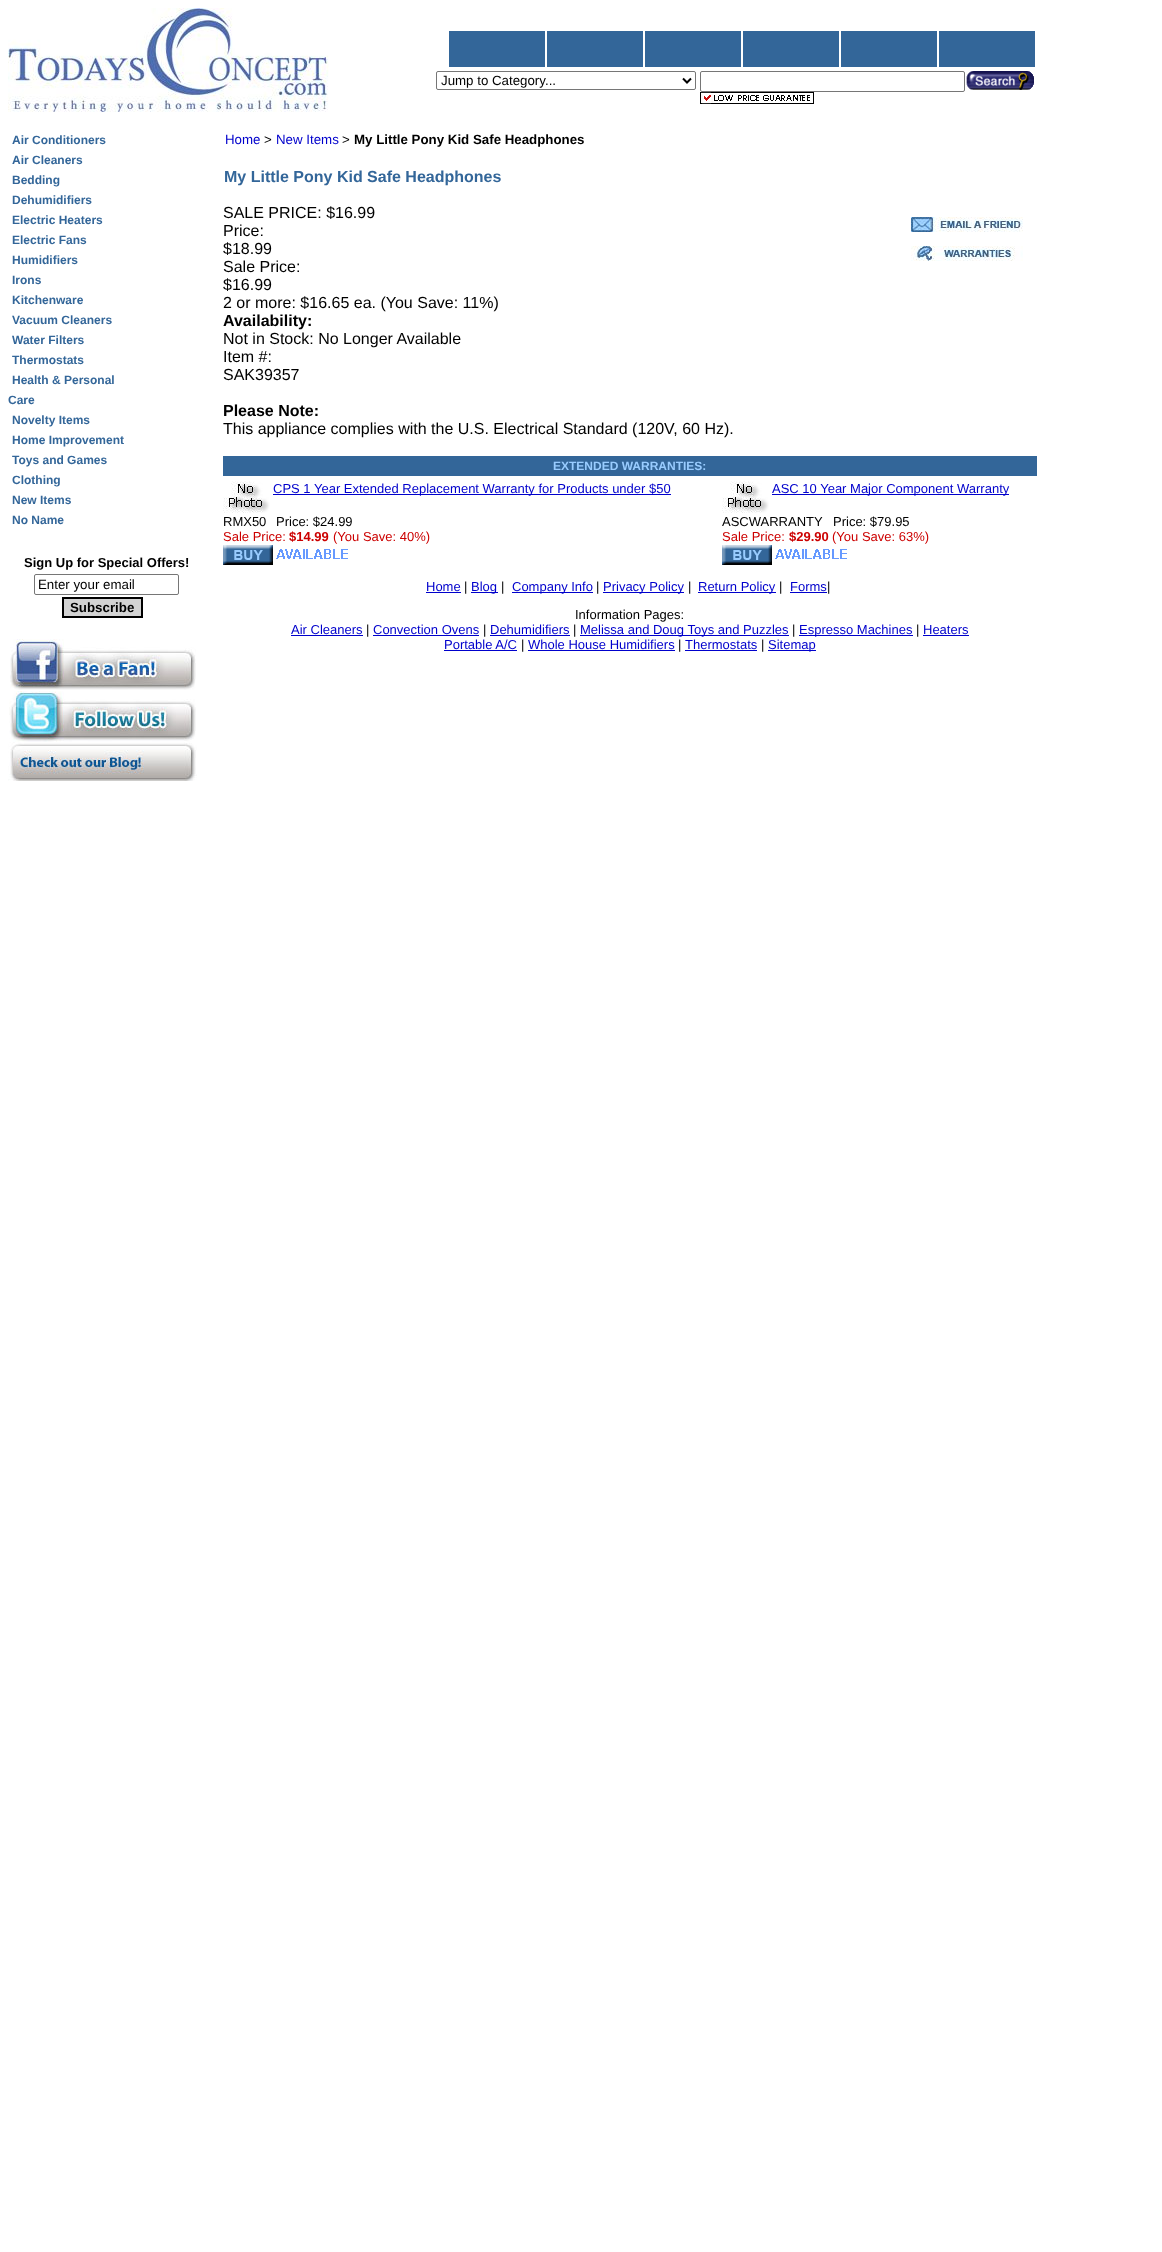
async function draw(canvas) {
  canvas.width = 1162;
  canvas.height = 2252;
  const ctx = canvas.getContext('2d');
  ctx.miterLimit = 4;
  ctx.fontKerning = 'normal';
  function label(s, x, y, font, color) {
    ctx.font = font;
    ctx.fillStyle = color;
    ctx.fillText(s, x, y);
  }
  function rect(x, y, w, h, color) {
    ctx.fillStyle = color;
    ctx.fillRect(x, y, w, h);
  }
  async function image(src, x, y, w, h) {
    const img = new Image();
    img.src = src;
    await img.decode();
    ctx.drawImage(img, x, y, w, h);
  }
  let path;

  rect(0, 0, 1162, 2252, '#fff');
  await image('assets/img1.png', 8, 8, 321, 104);
  rect(449, 31, 96, 36, '#369');
  rect(547, 31, 96, 36, '#369');
  rect(645, 31, 96, 36, '#369');
  rect(743, 31, 96, 36, '#369');
  rect(841, 31, 96, 36, '#369');
  rect(939, 31, 96, 36, '#369');
  ctx.beginPath();
  ctx.roundRect(436.5, 71.5, 259, 18, 1.5);
  ctx.strokeStyle = '#767676';
  ctx.stroke();
  path = new Path2D('M683 78.5L687 82.5L691 78.5');
  ctx.strokeStyle = '#000';
  ctx.lineWidth = 2;
  ctx.stroke(path);
  label('Jump to Category...', 441, 85, '13.3px Liberation Sans', '#000');
  ctx.beginPath();
  ctx.roundRect(700.5, 71.5, 264, 20, 1.5);
  ctx.strokeStyle = '#767676';
  ctx.lineWidth = 1;
  ctx.stroke();
  await image('assets/img2.png', 966, 71, 68, 19);
  await image('assets/img3.png', 700, 92, 114, 12);
  label('Air Conditioners', 12, 144, 'bold 12px Liberation Sans', '#369');
  label('Air Cleaners', 12, 164, 'bold 12px Liberation Sans', '#369');
  label('Bedding', 12, 184, 'bold 12px Liberation Sans', '#369');
  label('Dehumidifiers', 12, 204, 'bold 12px Liberation Sans', '#369');
  label('Electric Heaters', 12, 224, 'bold 12px Liberation Sans', '#369');
  label('Electric Fans', 12, 244, 'bold 12px Liberation Sans', '#369');
  label('Humidifiers', 12, 264, 'bold 12px Liberation Sans', '#369');
  label('Irons', 12, 284, 'bold 12px Liberation Sans', '#369');
  label('Kitchenware', 12, 304, 'bold 12px Liberation Sans', '#369');
  label('Vacuum Cleaners', 12, 324, 'bold 12px Liberation Sans', '#369');
  label('Water Filters', 12, 344, 'bold 12px Liberation Sans', '#369');
  label('Thermostats', 12, 364, 'bold 12px Liberation Sans', '#369');
  label('Health & Personal', 12, 384, 'bold 12px Liberation Sans', '#369');
  label('Care', 8, 404, 'bold 12px Liberation Sans', '#369');
  label('Novelty Items', 12, 424, 'bold 12px Liberation Sans', '#369');
  label('Home Improvement', 12, 444, 'bold 12px Liberation Sans', '#369');
  label('Toys and Games', 12, 464, 'bold 12px Liberation Sans', '#369');
  label('Clothing', 12, 484, 'bold 12px Liberation Sans', '#369');
  label('New Items', 12, 504, 'bold 12px Liberation Sans', '#369');
  label('No Name', 12, 524, 'bold 12px Liberation Sans', '#369');
  label('Sign Up for Special Offers!', 24, 567, 'bold 13px Liberation Sans', '#000');
  ctx.beginPath();
  ctx.roundRect(34.5, 574.5, 144, 20, 1.5);
  ctx.stroke();
  label('Enter your email', 38, 589, '13.3px Liberation Sans', '#000');
  ctx.fillStyle = '#d3d3d3';
  ctx.beginPath();
  ctx.rect(63, 598, 79, 19);
  ctx.fill();
  ctx.strokeStyle = '#000';
  ctx.lineWidth = 2;
  ctx.stroke();
  label('Subscribe', 70, 612, 'bold 13.3px Liberation Sans', '#000');
  await image('assets/img4.png', 10, 639, 186, 51);
  await image('assets/img5.png', 9, 691, 187, 51);
  await image('assets/img6.png', 8, 742, 189, 39);
  label('Home', 225, 144, '13.3px Liberation Sans', '#00c');
  label('>', 264, 144, '13.3px Liberation Sans', '#000');
  label('New Items', 276, 144, '13.3px Liberation Sans', '#00c');
  label('>', 342, 144, '13.3px Liberation Sans', '#000');
  label('My Little Pony Kid Safe Headphones', 354, 144, 'bold 13.3px Liberation Sans', '#000');
  label('My Little Pony Kid Safe Headphones', 224, 182, 'bold 16px Liberation Sans', '#369');
  label('SALE PRICE: $16.99', 223, 218, '16px Liberation Sans', '#000');
  label('Price:', 223, 236, '16px Liberation Sans', '#000');
  label('$18.99', 223, 254, '16px Liberation Sans', '#000');
  label('Sale Price:', 223, 272, '16px Liberation Sans', '#000');
  label('$16.99', 223, 290, '16px Liberation Sans', '#000');
  label('2 or more: $16.65 ea. (You Save: 11%)', 223, 308, '16px Liberation Sans', '#000');
  label('Availability:', 223, 326, 'bold 16px Liberation Sans', '#000');
  label('Not in Stock: No Longer Available', 223, 344, '16px Liberation Sans', '#000');
  label('Item #:', 223, 362, '16px Liberation Sans', '#000');
  label('SAK39357', 223, 380, '16px Liberation Sans', '#000');
  await image('assets/img7.png', 911, 217, 112, 15);
  await image('assets/img8.png', 911, 246, 112, 15);
  label('Please Note:', 223, 416, 'bold 16px Liberation Sans', '#000');
  label('This appliance complies with the U.S. Electrical Standard (120V, 60 Hz).', 223, 434, '16px Liberation Sans', '#000');
  rect(223, 456, 814, 20, '#369');
  label('EXTENDED WARRANTIES:', 553, 470, 'bold 12px Liberation Sans', '#9cf');
  await image('assets/img9.png', 223, 481, 47, 32);
  rect(273, 494, 398, 1, '#00c');
  label('CPS 1 Year Extended Replacement Warranty for Products under $50', 273, 493, '13px Liberation Sans', '#00c');
  label('RMX50', 223, 526, '13px Liberation Sans', '#000');
  label('Price: $24.99', 276, 526, '13px Liberation Sans', '#000');
  label('Sale Price:', 223, 541, '13px Liberation Sans', '#c00');
  label('$14.99', 289, 541, 'bold 13px Liberation Sans', '#c00');
  label('(You Save: 40%)', 333, 541, '13px Liberation Sans', '#c00');
  await image('assets/img10.png', 223, 545, 50, 20);
  await image('assets/img11.png', 276, 549, 72, 10);
  await image('assets/img9.png', 722, 481, 47, 32);
  rect(772, 494, 237, 1, '#00c');
  label('ASC 10 Year Major Component Warranty', 772, 493, '13px Liberation Sans', '#00c');
  label('ASCWARRANTY', 722, 526, '13px Liberation Sans', '#000');
  label('Price: $79.95', 833, 526, '13px Liberation Sans', '#000');
  label('Sale Price:', 722, 541, '13px Liberation Sans', '#c00');
  label('$29.90', 789, 541, 'bold 13px Liberation Sans', '#c00');
  label('(You Save: 63%)', 832, 541, '13px Liberation Sans', '#c00');
  await image('assets/img10.png', 722, 545, 50, 20);
  await image('assets/img11.png', 775, 549, 72, 10);
  label('Home', 426, 591, '13px Liberation Sans', '#00c');
  rect(426, 592, 35, 1, '#00c');
  label('|', 464, 591, '13px Liberation Sans', '#000');
  rect(471, 592, 27, 1, '#00c');
  label('Blog', 471, 591, '13px Liberation Sans', '#00c');
  label('|', 501, 591, '13px Liberation Sans', '#000');
  rect(512, 592, 81, 1, '#00c');
  label('Company Info', 512, 591, '13px Liberation Sans', '#00c');
  label('|', 596, 591, '13px Liberation Sans', '#000');
  rect(603, 592, 81, 1, '#00c');
  label('Privacy Policy', 603, 591, '13px Liberation Sans', '#00c');
  label('|', 688, 591, '13px Liberation Sans', '#000');
  rect(698, 592, 78, 1, '#00c');
  label('Return Policy', 698, 591, '13px Liberation Sans', '#00c');
  label('|', 779, 591, '13px Liberation Sans', '#000');
  label('Forms', 790, 591, '13px Liberation Sans', '#00c');
  rect(790, 592, 37, 1, '#00c');
  label('|', 827, 591, '13px Liberation Sans', '#000');
  label('Information Pages:', 575, 619, '13px Liberation Sans', '#000');
  label('Air Cleaners', 291, 634, '13px Liberation Sans', '#00c');
  rect(291, 635, 72, 1, '#00c');
  label('|', 366, 634, '13px Liberation Sans', '#000');
  label('Convection Ovens', 373, 634, '13px Liberation Sans', '#00c');
  rect(373, 635, 106, 1, '#00c');
  label('|', 483, 634, '13px Liberation Sans', '#000');
  label('Dehumidifiers', 490, 634, '13px Liberation Sans', '#00c');
  rect(490, 635, 80, 1, '#00c');
  label('|', 573, 634, '13px Liberation Sans', '#000');
  rect(580, 635, 209, 1, '#00c');
  label('Melissa and Doug Toys and Puzzles', 580, 634, '13px Liberation Sans', '#00c');
  label('|', 792, 634, '13px Liberation Sans', '#000');
  rect(799, 635, 114, 1, '#00c');
  label('Espresso Machines', 799, 634, '13px Liberation Sans', '#00c');
  label('|', 916, 634, '13px Liberation Sans', '#000');
  label('Heaters', 923, 634, '13px Liberation Sans', '#00c');
  rect(923, 635, 46, 1, '#00c');
  label('Portable A/C', 444, 649, '13px Liberation Sans', '#00c');
  rect(444, 650, 73, 1, '#00c');
  label('|', 521, 649, '13px Liberation Sans', '#000');
  label('Whole House Humidifiers', 528, 649, '13px Liberation Sans', '#00c');
  rect(528, 650, 147, 1, '#00c');
  label('|', 678, 649, '13px Liberation Sans', '#000');
  label('Thermostats', 685, 649, '13px Liberation Sans', '#00c');
  rect(685, 650, 72, 1, '#00c');
  label('|', 761, 649, '13px Liberation Sans', '#000');
  rect(768, 650, 48, 1, '#00c');
  label('Sitemap', 768, 649, '13px Liberation Sans', '#00c');
}

draw(document.querySelector('canvas'));
